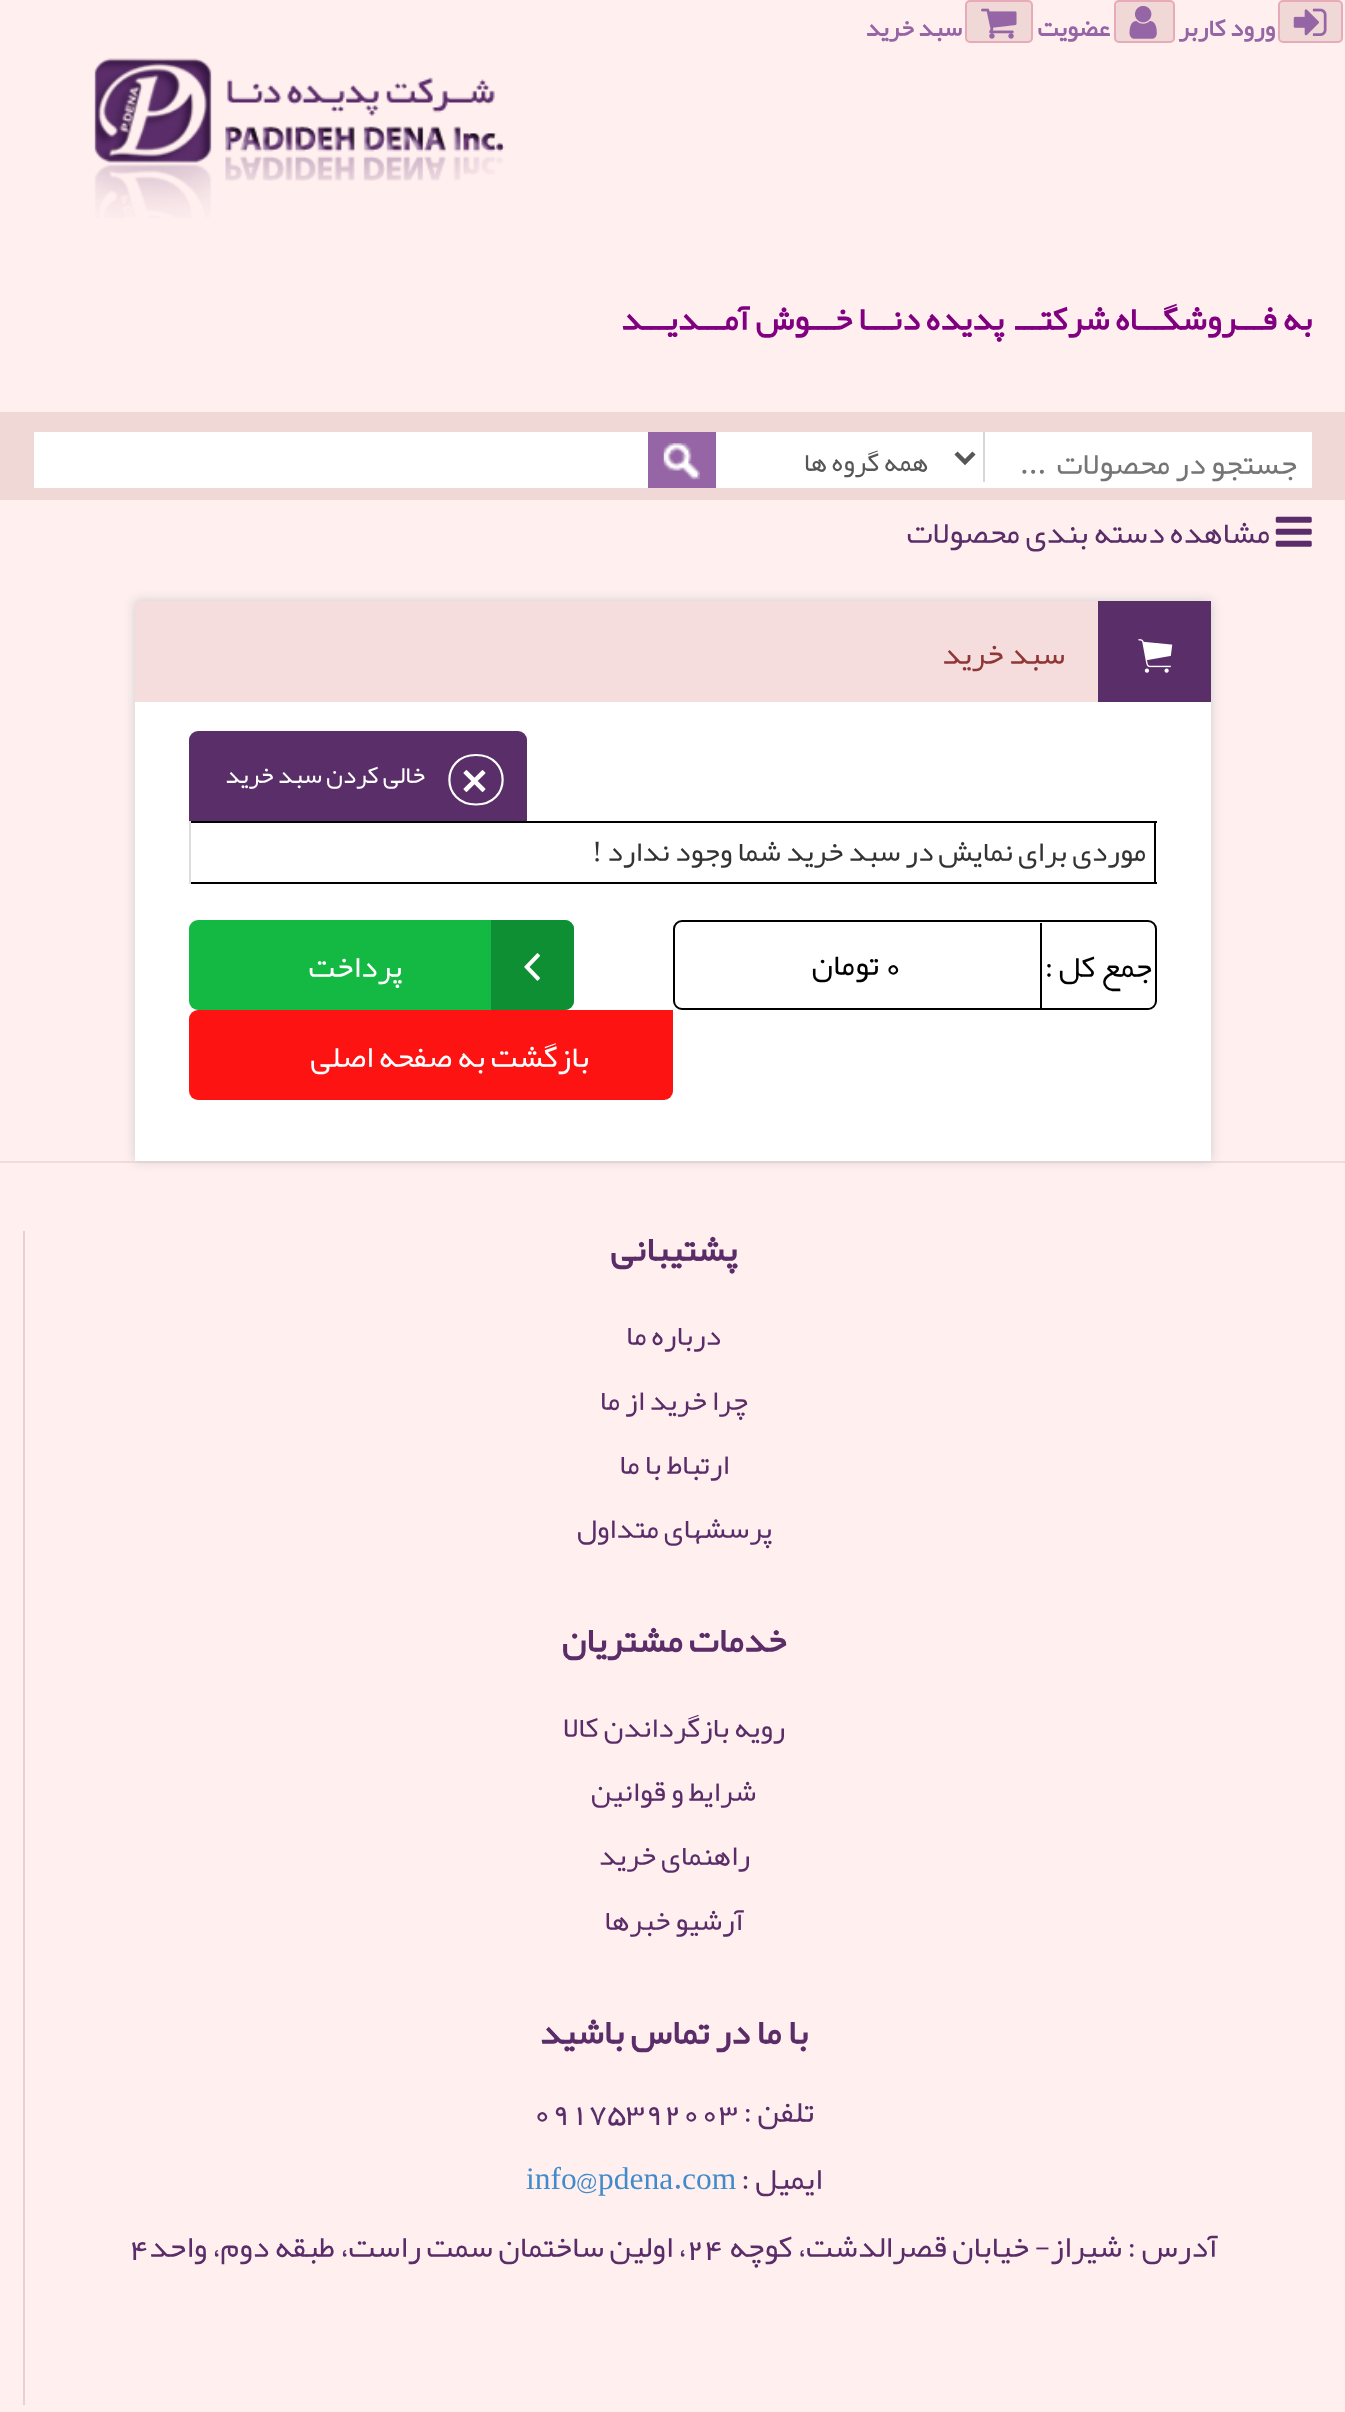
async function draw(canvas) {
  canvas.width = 1345;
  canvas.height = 2412;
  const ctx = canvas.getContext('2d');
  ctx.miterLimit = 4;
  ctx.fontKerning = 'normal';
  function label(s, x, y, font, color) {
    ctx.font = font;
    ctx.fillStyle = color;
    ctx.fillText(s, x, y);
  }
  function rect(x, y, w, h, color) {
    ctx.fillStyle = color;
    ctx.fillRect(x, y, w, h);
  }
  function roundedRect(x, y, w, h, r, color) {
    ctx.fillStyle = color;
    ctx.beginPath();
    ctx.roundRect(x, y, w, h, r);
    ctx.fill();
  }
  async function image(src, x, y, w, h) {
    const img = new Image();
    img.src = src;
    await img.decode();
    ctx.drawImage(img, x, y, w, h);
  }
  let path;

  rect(0, 0, 1345, 2412, '#ffefef');
  ctx.fillStyle = '#f0d8d7';
  ctx.beginPath();
  ctx.roundRect(1279, 1, 63, 41, 4);
  ctx.fill();
  ctx.strokeStyle = '#e7aab9';
  ctx.lineWidth = 2;
  ctx.stroke();
  await image('assets/img1.png', 1293, 8, 34, 28);
  ctx.direction = 'rtl';
  label('ورود کاربر', 1275, 36, 'bold 24.75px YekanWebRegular', '#9565a5');
  ctx.fillStyle = '#f0d8d7';
  ctx.beginPath();
  ctx.roundRect(1115, 1, 59, 41, 4);
  ctx.fill();
  ctx.stroke();
  await image('assets/img2.png', 1129, 6, 28, 33);
  label('عضویت', 1110, 36, 'bold 24.75px YekanWebRegular', '#9565a5');
  ctx.fillStyle = '#f0d8d7';
  ctx.beginPath();
  ctx.roundRect(966, 1, 66, 41, 4);
  ctx.fill();
  ctx.stroke();
  await image('assets/img3.png', 981, 8, 36, 31);
  label('سبد خرید', 962, 36, 'bold 24.75px YekanWebRegular', '#9565a5');
  await image('assets/img4.png', 94, 58, 411, 160);
  label('به فـــروشگـــاه شرکتـــ  پدیده دنـــا خـــوش آمـــدیـــد', 1312, 330, 'bold 33.75px YekanWebRegular', '#800080');
  rect(0, 412, 1345, 88, '#f0d8d7');
  rect(34, 432, 1278, 56, '#fff');
  label('جستجو در محصولات  ...', 1297, 474, '31.5px YekanWebRegular', '#757575');
  rect(983, 432, 2, 50, '#d6d6d6');
  path = new Path2D('M956 453L965 462L974 453');
  ctx.strokeStyle = '#565656';
  ctx.lineWidth = 4.5;
  ctx.stroke(path);
  label('همه گروه ها', 928, 471, '27px YekanWebRegular', '#565656');
  rect(648, 432, 68, 56, '#9565a5');
  await image('assets/img5.png', 663, 443, 37, 37);
  await image('assets/img6.png', 1275, 516, 37, 31);
  label('مشاهده دسته بندی محصولات', 1270, 543, '31.5px YekanWebRegular', '#5a2d68');
  rect(0, 1161, 1345, 2, '#f3dada');
  ctx.fillStyle = '#ccc';
  ctx.filter = 'blur(5.5px)';
  ctx.beginPath();
  ctx.rect(135, 601, 1076, 560);
  ctx.fill();
  ctx.filter = 'none';
  rect(135, 702, 1076, 459, '#fff');
  rect(135, 601, 963, 101, '#f5dddd');
  rect(1098, 601, 113, 101, '#5a2e69');
  await image('assets/img7.png', 1138, 639, 35, 34);
  label('سبد خرید', 1065, 664, '31.5px YekanWebRegular', '#903636');
  ctx.fillStyle = '#5a2e69';
  ctx.beginPath();
  ctx.roundRect(189, 731, 338, 90, [9, 9, 0, 0]);
  ctx.fill();
  path = new Path2D('M476 755C511.5 755 511.5 804.5 476 804.5C440.5 804.5 440.5 755 476 755Z');
  ctx.strokeStyle = '#fff';
  ctx.lineWidth = 2.2;
  ctx.stroke(path);
  await image('assets/img8.png', 463, 770, 23, 22);
  label('خالی کردن سبد خرید', 425, 783, '24.75px YekanWebRegular', '#fff');
  rect(189, 821, 968, 2, '#000');
  rect(1154, 821, 2, 63, '#000');
  rect(189, 882, 968, 2, '#000');
  rect(189, 821, 2, 63, '#ddd');
  label('موردی برای نمایش در سبد خرید شما وجود ندارد', 1146, 861, '29.25px YekanWebRegular', '#333');
  label('!', 602, 861, '29.25px Liberation Serif', '#333');
  ctx.beginPath();
  ctx.roundRect(674, 921, 482, 88, 8);
  ctx.strokeStyle = '#000';
  ctx.lineWidth = 2;
  ctx.stroke();
  ctx.fillStyle = '#fff';
  ctx.beginPath();
  ctx.roundRect(1040, 923, 114, 85, [0, 7, 7, 0]);
  ctx.fill();
  rect(1040, 923, 2, 85, '#000');
  label('جمع کل :', 1152, 977, '31.5px YekanWebRegular', '#000');
  ctx.direction = 'ltr';
  label('0', 884, 975, '31.5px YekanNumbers', '#000');
  ctx.direction = 'rtl';
  label('تومان', 879, 975, '31.5px YekanWebRegular', '#000');
  roundedRect(189, 920, 385, 90, 9, '#13b942');
  ctx.fillStyle = '#0f8f33';
  ctx.beginPath();
  ctx.roundRect(491, 920, 83, 90, [0, 9, 9, 0]);
  ctx.fill();
  await image('assets/img9.png', 524, 953, 16, 28);
  label('پرداخت', 402, 977, '31.5px YekanWebRegular', '#fff');
  ctx.fillStyle = '#fe1313';
  ctx.beginPath();
  ctx.roundRect(189, 1010, 484, 90, [9, 0, 9, 9]);
  ctx.fill();
  label('بازگشت به صفحه اصلی', 589, 1067, '31.5px YekanWebRegular', '#fff');
  rect(23, 1231, 2, 1174, '#e9d1d1');
  label('پشتیبانی', 737, 1261, 'bold 36px YekanWebRegular', '#5a2d68');
  label('درباره ما', 721, 1345, '29.25px YekanWebRegular', '#5a2d68');
  label('چرا خرید از ما', 748, 1410, '29.25px YekanWebRegular', '#5a2d68');
  label('ارتباط با ما', 729, 1474, '29.25px YekanWebRegular', '#5a2d68');
  label('پرسشهای متداول', 772, 1538, '29.25px YekanWebRegular', '#5a2d68');
  label('خدمات مشتریان', 786, 1652, 'bold 36px YekanWebRegular', '#5a2d68');
  label('رویه بازگرداندن کالا', 785, 1737, '29.25px YekanWebRegular', '#5a2d68');
  label('شرایط و قوانین', 756, 1801, '29.25px YekanWebRegular', '#5a2d68');
  label('راهنمای خرید', 750, 1865, '29.25px YekanWebRegular', '#5a2d68');
  label('آرشیو خبرها', 744, 1930, '29.25px YekanWebRegular', '#5a2d68');
  label('با ما در تماس باشید', 808, 2044, 'bold 36px YekanWebRegular', '#5a2d68');
  label('تلفن :', 814, 2122, '31.5px YekanWebRegular', '#5a2d68');
  ctx.direction = 'ltr';
  label('09175392003', 533, 2122, '31.5px YekanNumbers', '#5a2d68');
  ctx.direction = 'rtl';
  label('ایمیل', 822, 2189, '31.5px YekanWebRegular', '#5a2d68');
  ctx.direction = 'ltr';
  label(':', 741, 2189, '31.5px YekanWebRegular', '#5a2d68');
  label('com', 682, 2189, '31.5px Liberation Serif', '#428bca');
  label('.', 673, 2189, '31.5px YekanWebRegular', '#428bca');
  label('pdena', 598, 2189, '31.5px Liberation Serif', '#428bca');
  label('@', 576, 2189, '31.5px YekanWebRegular', '#428bca');
  label('info', 526, 2189, '31.5px Liberation Serif', '#428bca');
  ctx.direction = 'rtl';
  label('آدرس :', 1218, 2257, '31.5px YekanWebRegular', '#5a2d68');
  label('شیراز- خیابان قصرالدشت، کوچه', 1122, 2257, '31.5px YekanWebRegular', '#5a2d68');
  ctx.direction = 'ltr';
  label('24', 686, 2257, '31.5px YekanNumbers', '#5a2d68');
  ctx.direction = 'rtl';
  label('، اولین ساختمان سمت راست، طبقه دوم، واحد', 686, 2257, '31.5px YekanWebRegular', '#5a2d68');
  ctx.direction = 'ltr';
  label('4', 130, 2257, '31.5px YekanNumbers', '#5a2d68');
}

draw(document.querySelector('canvas'));
